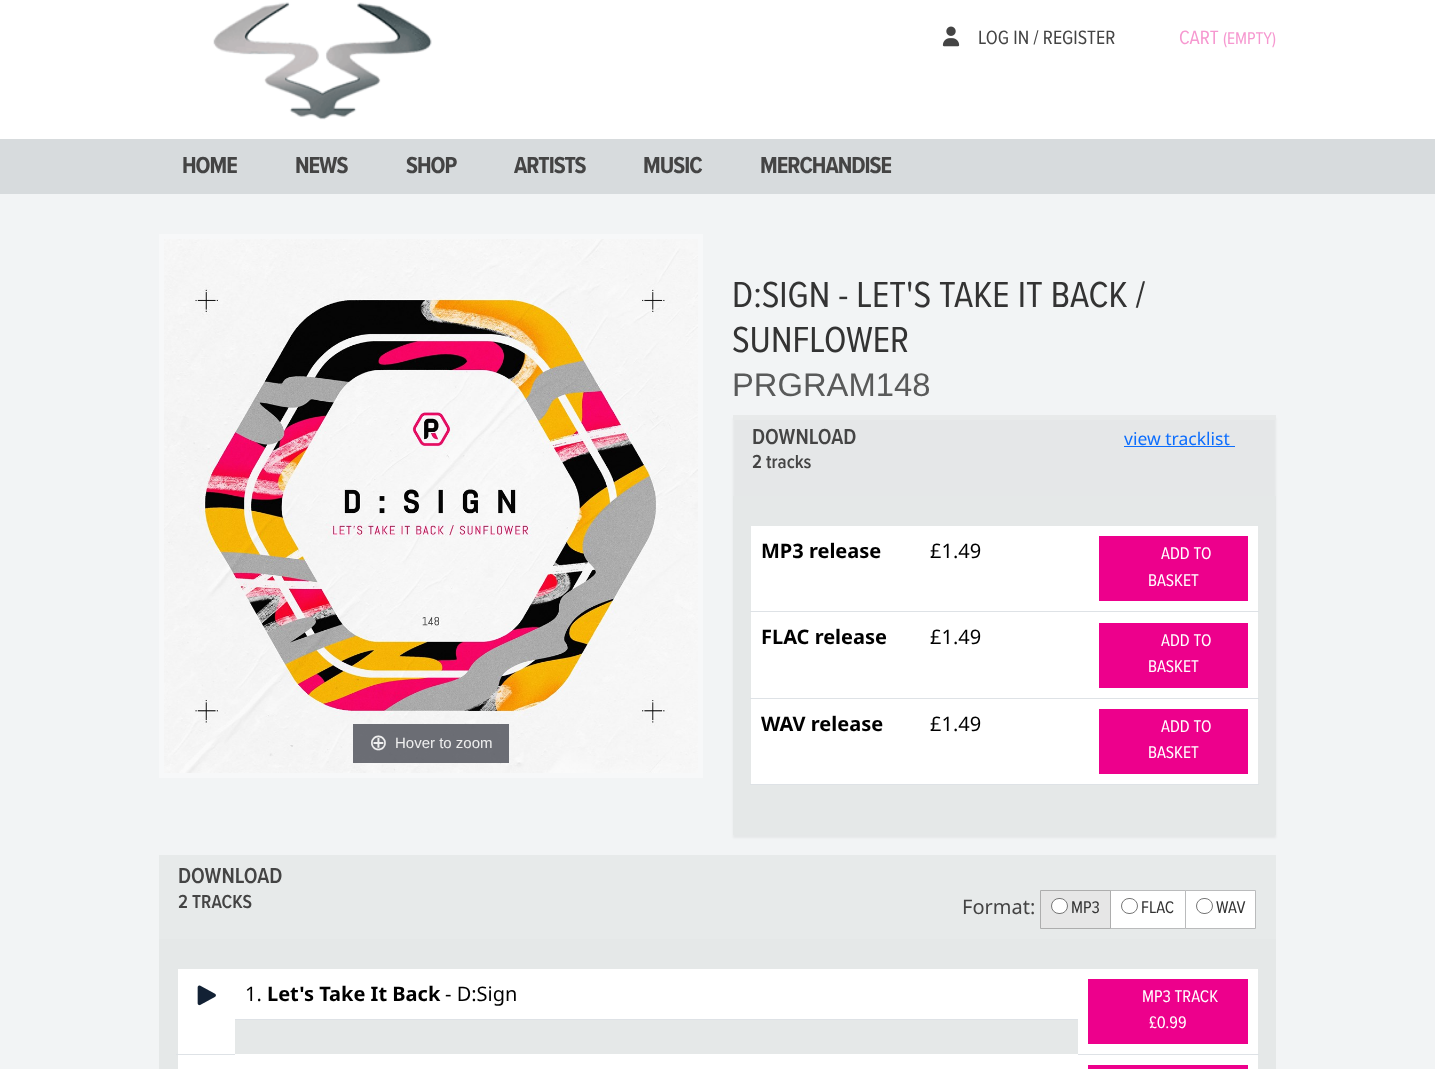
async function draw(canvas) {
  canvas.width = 1435;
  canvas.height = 1069;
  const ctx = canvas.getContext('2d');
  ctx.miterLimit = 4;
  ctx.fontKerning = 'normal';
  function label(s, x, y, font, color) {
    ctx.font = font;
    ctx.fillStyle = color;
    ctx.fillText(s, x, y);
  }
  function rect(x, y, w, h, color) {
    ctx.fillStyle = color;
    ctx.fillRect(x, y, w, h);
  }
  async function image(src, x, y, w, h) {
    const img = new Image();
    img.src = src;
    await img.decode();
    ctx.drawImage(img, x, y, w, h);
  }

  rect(0, 0, 1435, 1069, '#f2f4f5');
  rect(0, 0, 1435, 139, '#fff');
  await image('assets/img1.png', 213, 2, 219, 118);
  await image('assets/img2.png', 942, 26, 18, 21);
  label('LOG IN / REGISTER', 978, 44, '20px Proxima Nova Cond', '#444');
  label('CART', 1179, 44, '20px Proxima Nova Cond', '#f698d0');
  label('(EMPTY)', 1223, 44, '17.5px Proxima Nova Cond', '#f698d0');
  rect(0, 139, 1435, 55, '#d7dbdd');
  ctx.letterSpacing = '-1px';
  label('HOME', 182, 173, 'bold 24px Proxima Nova Cond', '#444');
  label('NEWS', 295, 173, 'bold 24px Proxima Nova Cond', '#444');
  label('SHOP', 406, 173, 'bold 24px Proxima Nova Cond', '#444');
  label('ARTISTS', 514, 173, 'bold 24px Proxima Nova Cond', '#444');
  label('MUSIC', 643, 173, 'bold 24px Proxima Nova Cond', '#444');
  label('MERCHANDISE', 760, 173, 'bold 24px Proxima Nova Cond', '#444');
  rect(159, 234, 544, 544, '#f7f8f9');
  await image('assets/img3.png', 164, 239, 534, 534);
  rect(353, 724, 156, 39, '#31333db3');
  ctx.letterSpacing = '0px';
  label('⊕', 369, 750, '22.5px DejaVu Sans', '#eee');
  label('Hover to zoom', 395, 748, '15px Liberation Sans', '#eee');
  label('D:SIGN - LET\'S TAKE IT BACK /', 732, 307, '37.5px Proxima Nova Cond', '#333');
  label('SUNFLOWER', 732, 352, '37.5px Proxima Nova Cond', '#333');
  label('PRGRAM148', 732, 396, '32.75px Liberation Sans', '#595a5a');
  ctx.fillStyle = '#0000000d';
  ctx.filter = 'blur(1px)';
  ctx.beginPath();
  ctx.rect(733, 418, 543, 420);
  ctx.fill();
  ctx.filter = 'none';
  rect(733, 496, 543, 339, '#e5e8e8');
  rect(733, 415, 543, 5, '#e8eaea');
  label('DOWNLOAD', 752, 444, '600 22.5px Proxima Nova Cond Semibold', '#444');
  label('2 tracks', 752, 468, '600 19.5px Proxima Nova Cond Semibold', '#444');
  label('view tracklist', 1124, 445, '17.5px Noto Sans', '#0d6efd');
  rect(1124, 446, 111, 1, '#0d6efd');
  rect(751, 526, 507, 85, '#fff');
  label('MP3 release', 761, 558, 'bold 20px Noto Sans', '#000');
  label('£1.49', 930, 558, '20px Noto Sans', '#000');
  rect(750, 611, 509, 1, '#dee2e6');
  rect(1099, 536, 149, 65, '#ed008c');
  label('ADD TO', 1161, 559, '17.5px Proxima Nova Cond', '#fff');
  label('BASKET', 1148, 586, '17.5px Proxima Nova Cond', '#fff');
  rect(751, 612, 507, 86, '#fff');
  label('FLAC release', 761, 644, 'bold 20px Noto Sans', '#000');
  label('£1.49', 930, 644, '20px Noto Sans', '#000');
  rect(750, 698, 509, 1, '#dee2e6');
  rect(1099, 623, 149, 65, '#ed008c');
  label('ADD TO', 1161, 646, '17.5px Proxima Nova Cond', '#fff');
  label('BASKET', 1148, 672, '17.5px Proxima Nova Cond', '#fff');
  rect(751, 699, 507, 85, '#fff');
  label('WAV release', 761, 731, 'bold 20px Noto Sans', '#000');
  label('£1.49', 930, 731, '20px Noto Sans', '#000');
  rect(750, 784, 509, 1, '#dee2e6');
  rect(1099, 709, 149, 65, '#ed008c');
  label('ADD TO', 1161, 732, '17.5px Proxima Nova Cond', '#fff');
  label('BASKET', 1148, 758, '17.5px Proxima Nova Cond', '#fff');
  rect(159, 939, 1117, 130, '#e5e8e8');
  rect(159, 855, 1117, 84, '#e7eaea');
  label('DOWNLOAD', 178, 883, '600 22.5px Proxima Nova Cond Semibold', '#444');
  label('2 TRACKS', 178, 908, '600 19.5px Proxima Nova Cond Semibold', '#444');
  label('Format:', 962, 914, '20px Noto Sans', '#444');
  ctx.fillStyle = '#fff';
  ctx.beginPath();
  ctx.rect(1110.5, 890.5, 75, 38);
  ctx.fill();
  ctx.strokeStyle = '#babbbc';
  ctx.stroke();
  ctx.fillStyle = '#e6e6e6';
  ctx.beginPath();
  ctx.rect(1040.5, 890.5, 70, 38);
  ctx.fill();
  ctx.strokeStyle = '#adadad';
  ctx.stroke();
  ctx.fillStyle = '#fff';
  ctx.beginPath();
  ctx.roundRect(1051.5, 898.5, 16, 15, 7.5);
  ctx.fill();
  ctx.strokeStyle = '#767676';
  ctx.stroke();
  label('MP3', 1071, 913, '17.5px Proxima Nova Cond', '#333');
  ctx.beginPath();
  ctx.roundRect(1121.5, 898.5, 16, 15, 7.5);
  ctx.stroke();
  label('FLAC', 1141, 913, '17.5px Proxima Nova Cond', '#333');
  ctx.fillStyle = '#fff';
  ctx.beginPath();
  ctx.rect(1185.5, 890.5, 70, 38);
  ctx.fill();
  ctx.strokeStyle = '#babbbc';
  ctx.stroke();
  ctx.beginPath();
  ctx.roundRect(1196.5, 898.5, 16, 15, 7.5);
  ctx.strokeStyle = '#767676';
  ctx.stroke();
  label('WAV', 1216, 913, '17.5px Proxima Nova Cond', '#333');
  rect(178, 969, 57, 85, '#fff');
  rect(176, 1054, 59, 1, '#dee2e6');
  await image('assets/img4.png', 197, 985, 19, 21);
  rect(235, 969, 843, 50, '#fff');
  rect(235, 1019, 843, 1, '#dee2e6');
  label('1.', 245, 1001, '20px Noto Sans', '#000');
  label('Let\'s Take It Back', 267, 1001, 'bold 20px Noto Sans', '#000');
  label('- D:Sign', 445, 1001, '20px Noto Sans', '#000');
  rect(1078, 969, 180, 85, '#fff');
  rect(1078, 1054, 181, 1, '#dee2e6');
  rect(1088, 979, 160, 65, '#ed008c');
  label('MP3 TRACK', 1142, 1002, '17.5px Proxima Nova Cond', '#fff');
  label('£0.99', 1149, 1028, '17.5px Proxima Nova Cond', '#fff');
  rect(178, 1055, 57, 14, '#fff');
  rect(235, 1054, 843, 15, '#fff');
  rect(1078, 1055, 180, 14, '#fff');
  rect(1088, 1065, 160, 4, '#ed008c');
}

draw(document.querySelector('canvas'));
